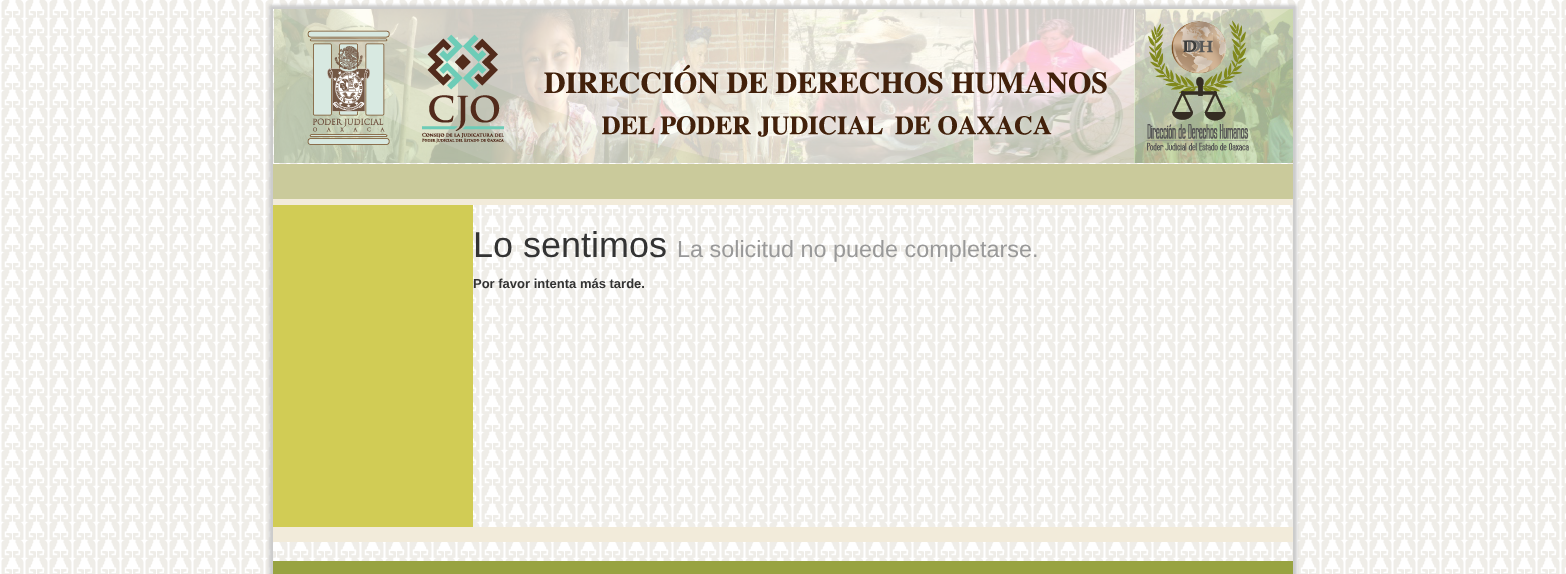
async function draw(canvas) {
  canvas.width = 1566;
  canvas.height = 574;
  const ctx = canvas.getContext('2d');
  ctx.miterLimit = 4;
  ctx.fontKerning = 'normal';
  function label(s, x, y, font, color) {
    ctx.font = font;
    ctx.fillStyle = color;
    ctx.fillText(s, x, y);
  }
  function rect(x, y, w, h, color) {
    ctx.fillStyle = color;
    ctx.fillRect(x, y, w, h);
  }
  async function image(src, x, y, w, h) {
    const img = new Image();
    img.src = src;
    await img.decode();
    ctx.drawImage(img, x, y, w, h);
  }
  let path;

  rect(0, 0, 1566, 574, '#fff');
  await image('assets/img1.png', 1, 0, 1565, 574);
  ctx.save();
  path = new Path2D('M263 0H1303V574H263ZM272 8H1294V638H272Z');
  ctx.clip(path, 'evenodd');
  ctx.fillStyle = '#ccc';
  ctx.filter = 'blur(1.5px)';
  ctx.beginPath();
  ctx.rect(269, 5, 1028, 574);
  ctx.fill();
  ctx.filter = 'none';
  ctx.restore();
  ctx.strokeStyle = '#ccc';
  ctx.strokeRect(272.5, 8.5, 1021, 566);
  await image('assets/img2.png', 274, 9, 1019, 154);
  rect(273, 164, 1020, 35, '#caca9b');
  rect(273, 199, 1020, 6, '#f2ebda');
  rect(273, 205, 200, 322, '#d1cc55');
  label('Lo sentimos', 473, 257, '36px Liberation Sans', '#333');
  label('La solicitud no puede completarse.', 677, 257, '23.4px Liberation Sans', '#999');
  label('Por favor intenta más tarde.', 473, 288, 'bold 13px Liberation Sans', '#333');
  rect(273, 527, 1020, 15, '#f2ebda');
  rect(273, 561, 1020, 13, '#98a341');
}

draw(document.querySelector('canvas'));
